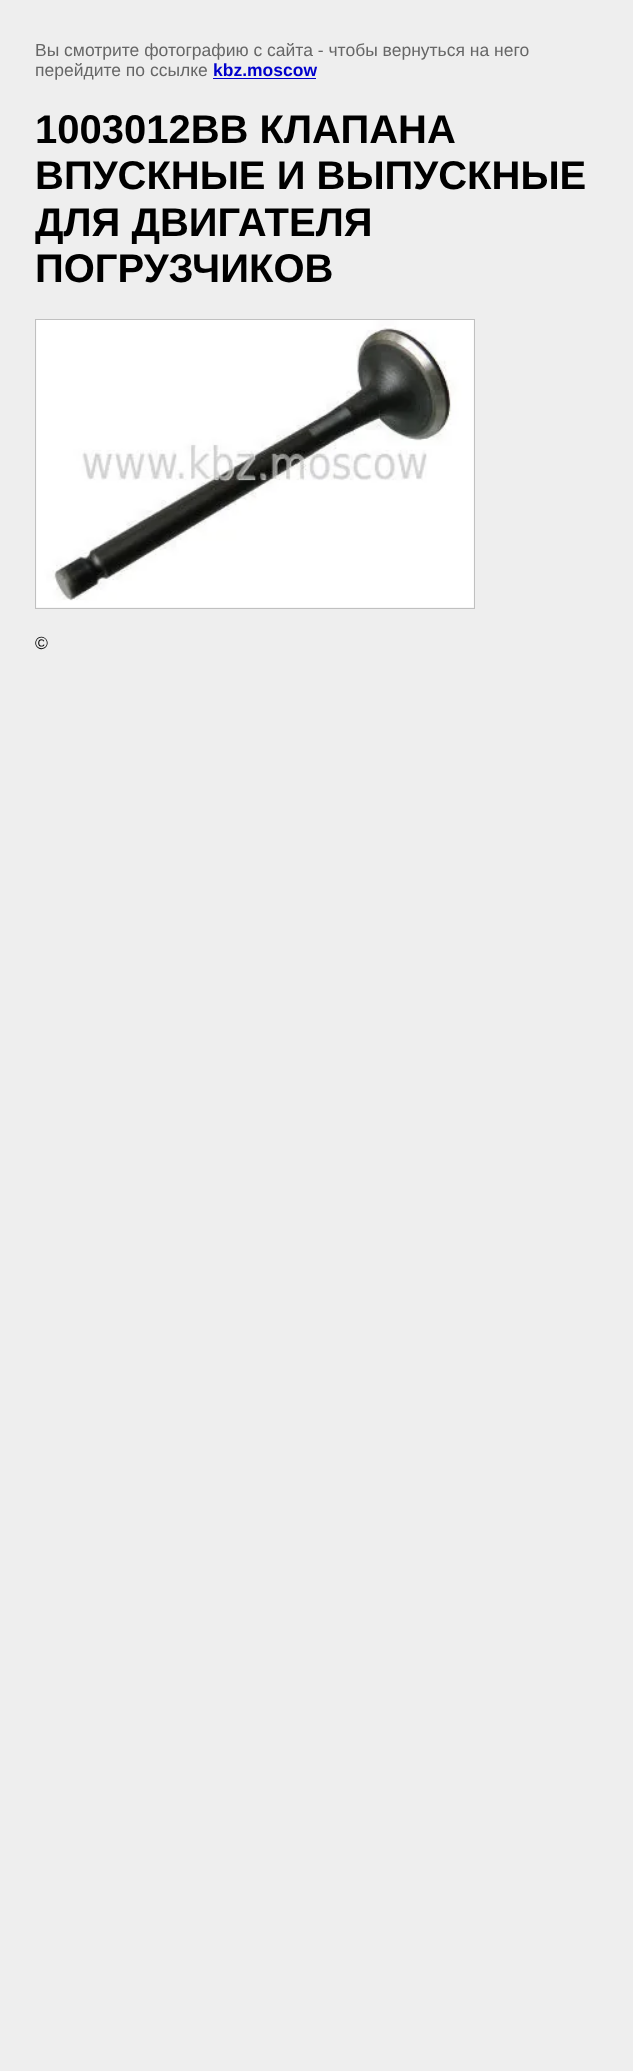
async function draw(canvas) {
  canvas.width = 633;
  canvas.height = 2071;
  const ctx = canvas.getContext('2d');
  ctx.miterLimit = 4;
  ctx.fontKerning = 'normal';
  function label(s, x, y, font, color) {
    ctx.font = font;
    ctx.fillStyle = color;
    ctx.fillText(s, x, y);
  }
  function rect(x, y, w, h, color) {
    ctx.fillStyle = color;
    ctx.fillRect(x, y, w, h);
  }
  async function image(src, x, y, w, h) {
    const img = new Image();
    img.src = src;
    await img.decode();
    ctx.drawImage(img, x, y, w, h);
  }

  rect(0, 0, 633, 2071, '#eee');
  label('Вы смотрите фотографию с сайта - чтобы вернуться на него', 35, 56, '17.5px Liberation Sans', '#666');
  label('перейдите по ссылке', 35, 76, '17.5px Liberation Sans', '#666');
  label('kbz.moscow', 213, 76, 'bold 17.5px Liberation Sans', '#00c');
  rect(213, 78, 103, 1, '#00c');
  label('1003012BB КЛАПАНА', 35, 143, 'bold 40px Liberation Sans', '#000');
  label('ВПУСКНЫЕ И ВЫПУСКНЫЕ', 35, 189, 'bold 40px Liberation Sans', '#000');
  label('ДЛЯ ДВИГАТЕЛЯ', 35, 236, 'bold 40px Liberation Sans', '#000');
  label('ПОГРУЗЧИКОВ', 35, 282, 'bold 40px Liberation Sans', '#000');
  ctx.strokeStyle = '#c0c0c0';
  ctx.strokeRect(35.5, 319.5, 439, 289);
  await image('assets/img1.png', 36, 320, 438, 288);
  label('©', 35, 649, '17.5px Liberation Sans', '#000');
}

draw(document.querySelector('canvas'));
